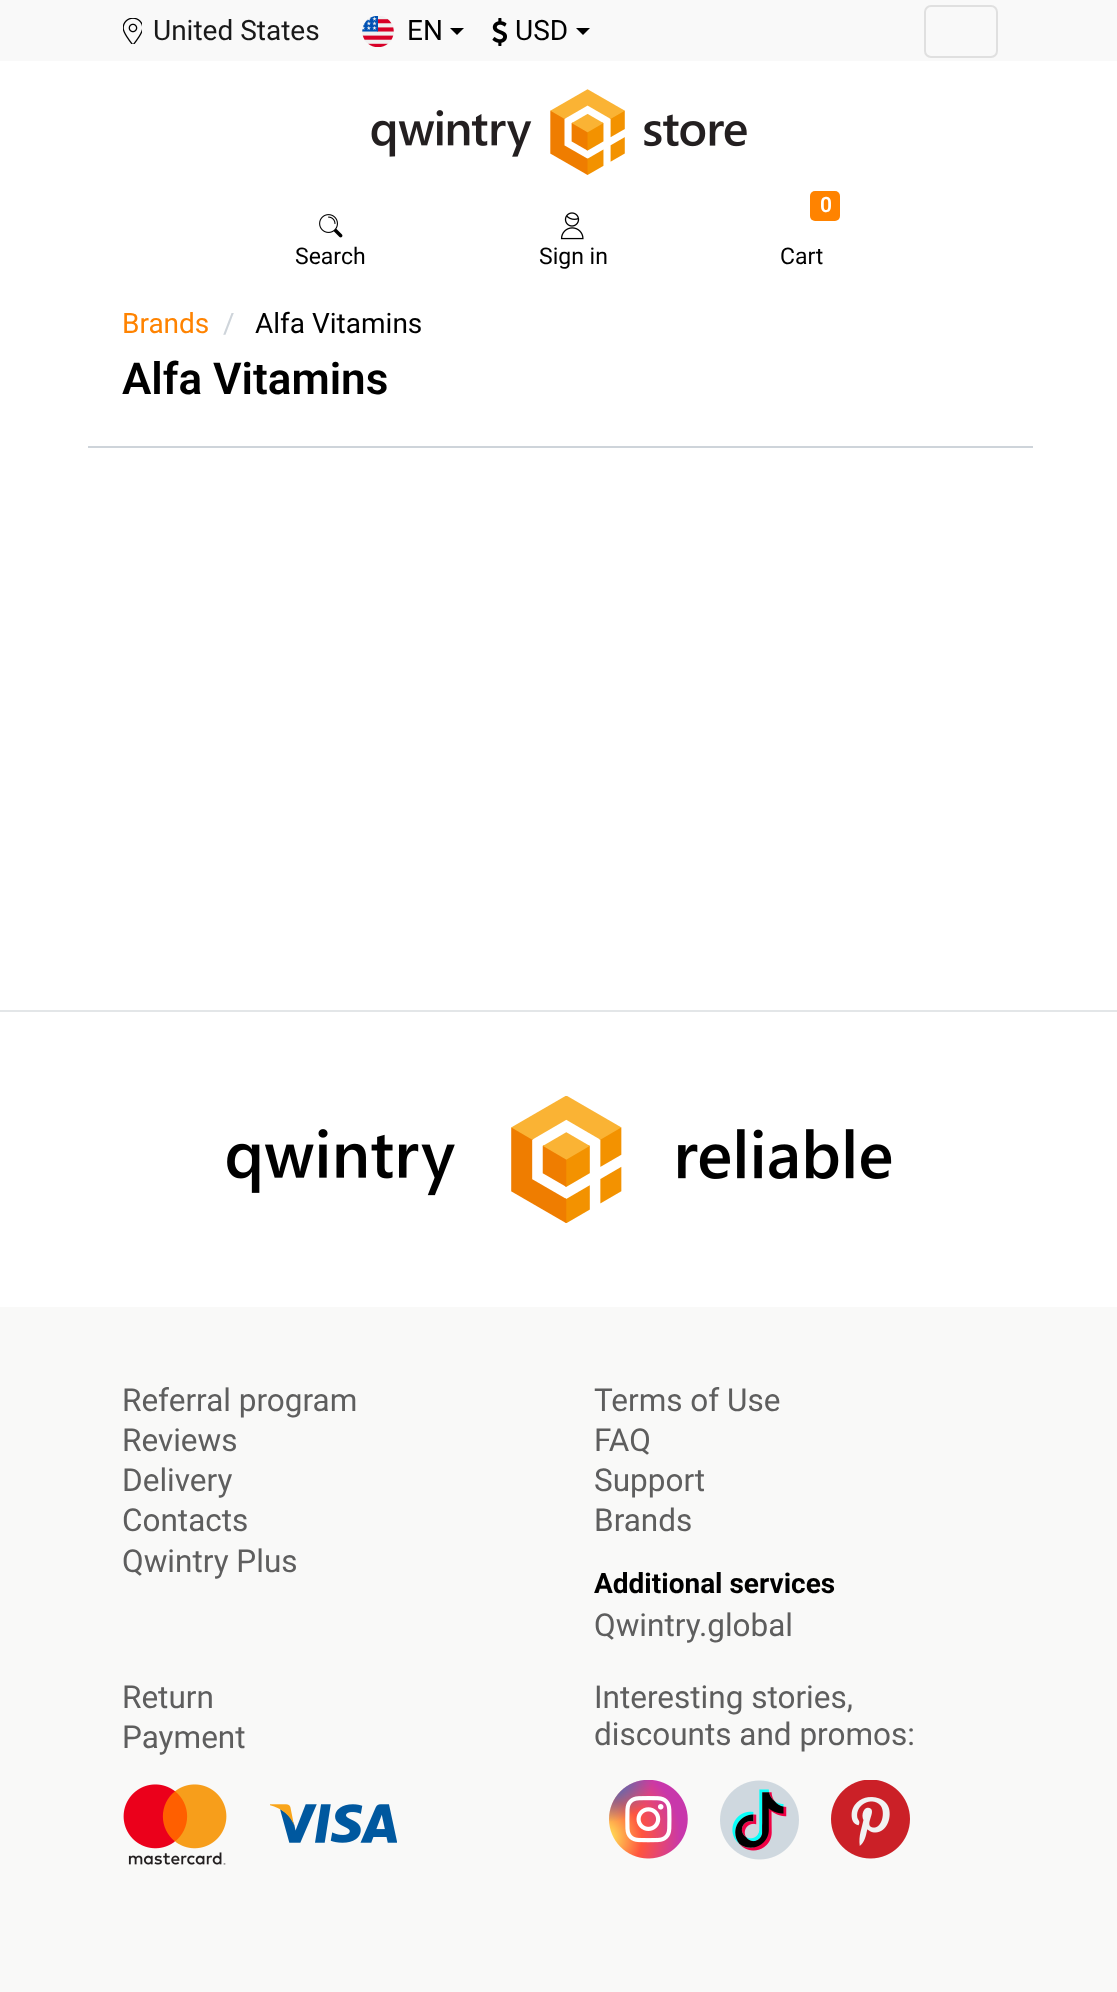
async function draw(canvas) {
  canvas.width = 1117;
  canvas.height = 1992;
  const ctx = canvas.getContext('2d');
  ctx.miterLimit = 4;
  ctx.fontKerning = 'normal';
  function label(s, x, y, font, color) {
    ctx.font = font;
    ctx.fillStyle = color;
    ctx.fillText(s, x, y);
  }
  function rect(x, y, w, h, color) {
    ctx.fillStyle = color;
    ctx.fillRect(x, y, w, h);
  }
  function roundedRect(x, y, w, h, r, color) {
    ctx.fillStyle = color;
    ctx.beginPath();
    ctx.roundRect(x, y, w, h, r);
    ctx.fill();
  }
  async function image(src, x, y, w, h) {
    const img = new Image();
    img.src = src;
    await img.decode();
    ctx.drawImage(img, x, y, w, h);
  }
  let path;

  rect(0, 0, 1117, 1992, '#fff');
  rect(0, 0, 1117, 61, '#f9f9f9');
  await image('assets/img1.png', 123, 18, 19, 26);
  label('United States', 153, 40, '28px Roboto', '#191919');
  await image('assets/img2.png', 362, 16, 32, 31);
  label('EN', 407, 40, '28px Roboto', '#000');
  path = new Path2D('M450 28H464L457 35Z');
  ctx.fill(path);
  await image('assets/img3.png', 492, 18, 15, 28);
  label('USD', 515, 40, '28px Roboto', '#000');
  path = new Path2D('M576 28H590L583 35Z');
  ctx.fill(path);
  ctx.beginPath();
  ctx.roundRect(925, 6, 72, 51, 6);
  ctx.strokeStyle = '#e0e0e0';
  ctx.lineWidth = 2;
  ctx.stroke();
  await image('assets/img4.png', 371, 89, 376, 86);
  await image('assets/img5.png', 319, 214, 24, 24);
  label('Search', 295, 264, '23px Roboto', '#000');
  await image('assets/img6.png', 560, 212, 24, 28);
  label('Sign in', 539, 264, '23px Roboto', '#000');
  roundedRect(810, 191, 30, 30, 5, '#ff8300');
  label('0', 820, 212, '600 21px Roboto', '#fff');
  label('Cart', 780, 264, '23px Roboto', '#000');
  label('Brands', 122, 333, '28px Roboto', '#ff8300');
  label('/', 223, 333, '28px Roboto', '#ced4da');
  label('Alfa Vitamins', 255, 333, '28px Roboto', '#000');
  label('Alfa Vitamins', 122, 394, '600 44px Roboto', '#000');
  rect(88, 446, 945, 2, '#ced4da');
  rect(0, 1010, 1117, 2, '#e3e6e8');
  await image('assets/img7.png', 227, 1096, 665, 127);
  rect(0, 1307, 1117, 685, '#f9f9f8');
  label('Referral program', 122, 1411, '31.5px Roboto', '#5e5e5e');
  label('Reviews', 122, 1451, '31.5px Roboto', '#5e5e5e');
  label('Delivery', 122, 1491, '31.5px Roboto', '#5e5e5e');
  label('Contacts', 122, 1531, '31.5px Roboto', '#5e5e5e');
  label('Qwintry Plus', 122, 1572, '31.5px Roboto', '#5e5e5e');
  label('Terms of Use', 594, 1411, '31.5px Roboto', '#5e5e5e');
  label('FAQ', 594, 1451, '31.5px Roboto', '#5e5e5e');
  label('Support', 594, 1491, '31.5px Roboto', '#5e5e5e');
  label('Brands', 594, 1531, '31.5px Roboto', '#5e5e5e');
  label('Additional services', 594, 1593, 'bold 28px Roboto', '#000');
  label('Qwintry.global', 594, 1636, '31.5px Roboto', '#5e5e5e');
  label('Return', 122, 1708, '31.5px Roboto', '#5e5e5e');
  label('Payment', 122, 1748, '31.5px Roboto', '#5e5e5e');
  await image('assets/img8.png', 123, 1784, 104, 81);
  await image('assets/img9.png', 270, 1804, 127, 39);
  label('Interesting stories,', 594, 1708, '31.5px Roboto', '#5e5e5e');
  label('discounts and promos:', 594, 1745, '31.5px Roboto', '#5e5e5e');
  await image('assets/img10.png', 609, 1780, 79, 79);
  await image('assets/img11.png', 720, 1780, 79, 80);
  await image('assets/img12.png', 831, 1780, 79, 79);
}

draw(document.querySelector('canvas'));
